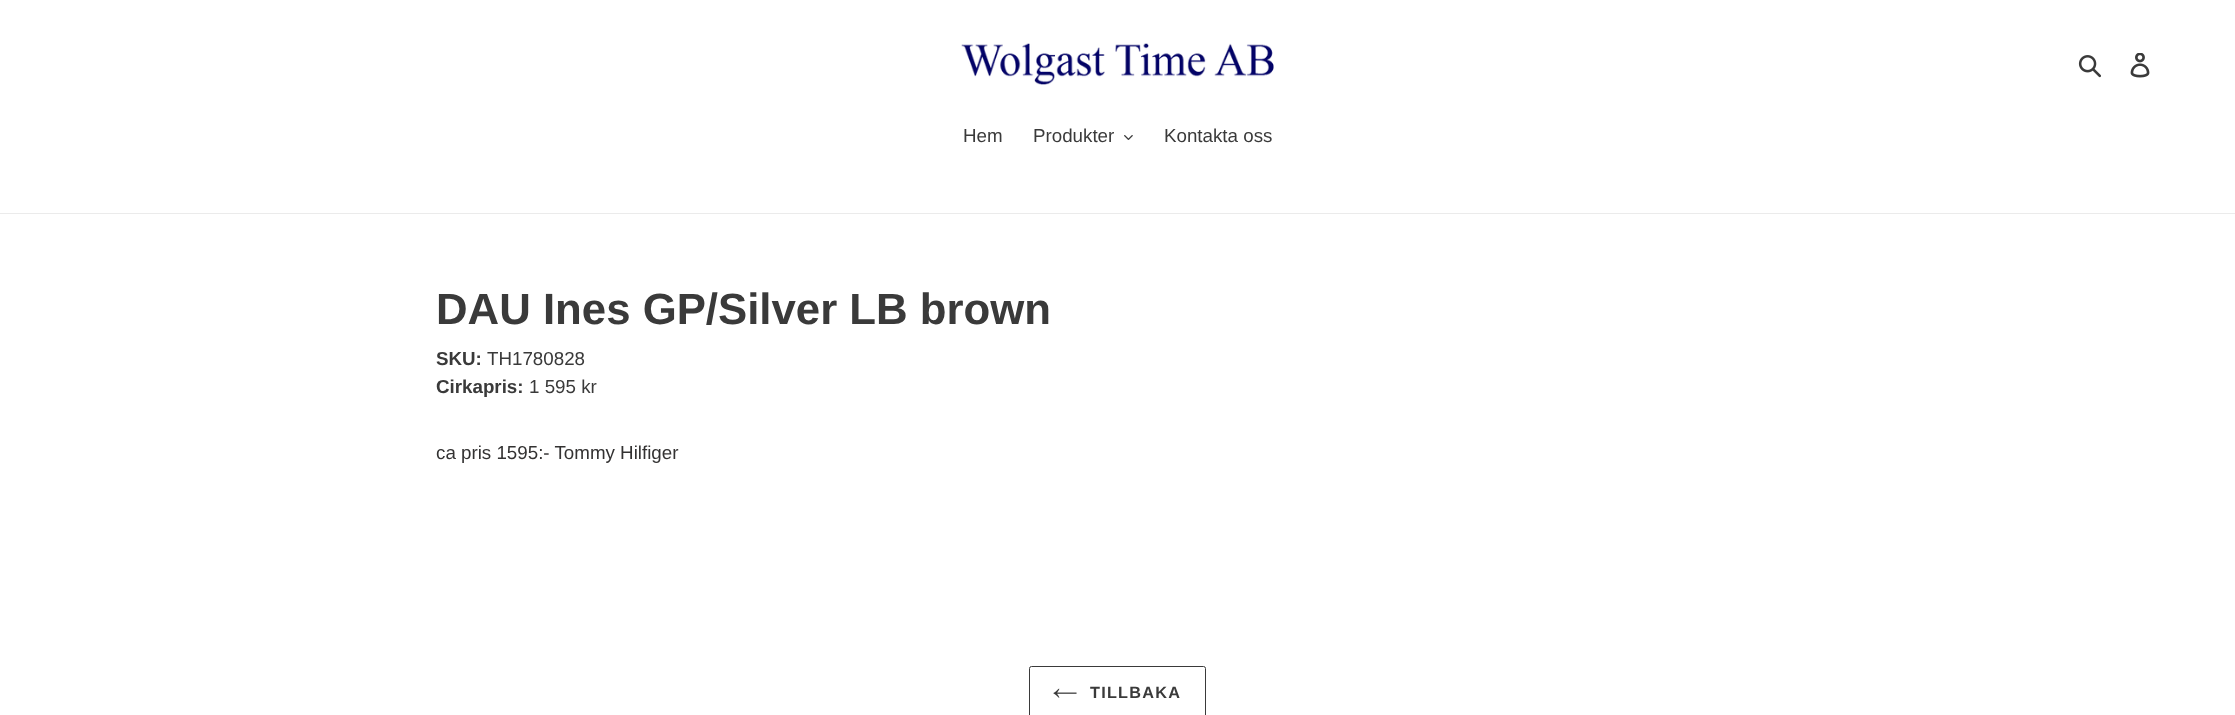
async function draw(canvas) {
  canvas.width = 2235;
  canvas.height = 715;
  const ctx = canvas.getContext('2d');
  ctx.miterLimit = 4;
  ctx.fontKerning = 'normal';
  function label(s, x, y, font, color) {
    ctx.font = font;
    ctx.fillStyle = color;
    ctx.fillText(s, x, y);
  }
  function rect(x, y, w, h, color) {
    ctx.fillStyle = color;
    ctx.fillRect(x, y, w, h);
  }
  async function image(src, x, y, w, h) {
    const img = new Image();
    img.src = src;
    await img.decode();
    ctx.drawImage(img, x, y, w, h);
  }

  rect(0, 0, 2235, 715, '#fff');
  await image('assets/img1.png', 961, 43, 313, 42);
  await image('assets/img2.png', 2078, 55, 23, 23);
  await image('assets/img3.png', 2130, 53, 20, 25);
  rect(0, 213, 2235, 1, '#ebebeb');
  label('Hem', 963, 142, '18.75px Liberation Sans', '#3a3a3a');
  label('Produkter', 1033, 142, '18.75px Liberation Sans', '#3a3a3a');
  await image('assets/img4.png', 1124, 135, 9, 5);
  label('Kontakta oss', 1164, 142, '18.75px Liberation Sans', '#3a3a3a');
  label('DAU Ines GP/Silver LB brown', 436, 324, 'bold 43.75px Liberation Sans', '#3a3a3a');
  label('SKU:', 436, 365, 'bold 18.75px Liberation Sans', '#3a3a3a');
  label('TH1780828', 487, 365, '18.75px Liberation Sans', '#3a3a3a');
  label('Cirkapris:', 436, 393, 'bold 18.75px Liberation Sans', '#3a3a3a');
  label('1 595 kr', 529, 393, '18.75px Liberation Sans', '#3a3a3a');
  label('ca pris 1595:- Tommy Hilfiger', 436, 459, '18.75px Liberation Sans', '#333232');
  ctx.beginPath();
  ctx.roundRect(1029.5, 666.5, 176, 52, 2);
  ctx.strokeStyle = '#3a3a3a';
  ctx.stroke();
  await image('assets/img5.png', 1053, 688, 24, 10);
  ctx.letterSpacing = '1.25px';
  label('TILLBAKA', 1090, 698, 'bold 16.25px Liberation Sans', '#3a3a3a');
}

draw(document.querySelector('canvas'));
